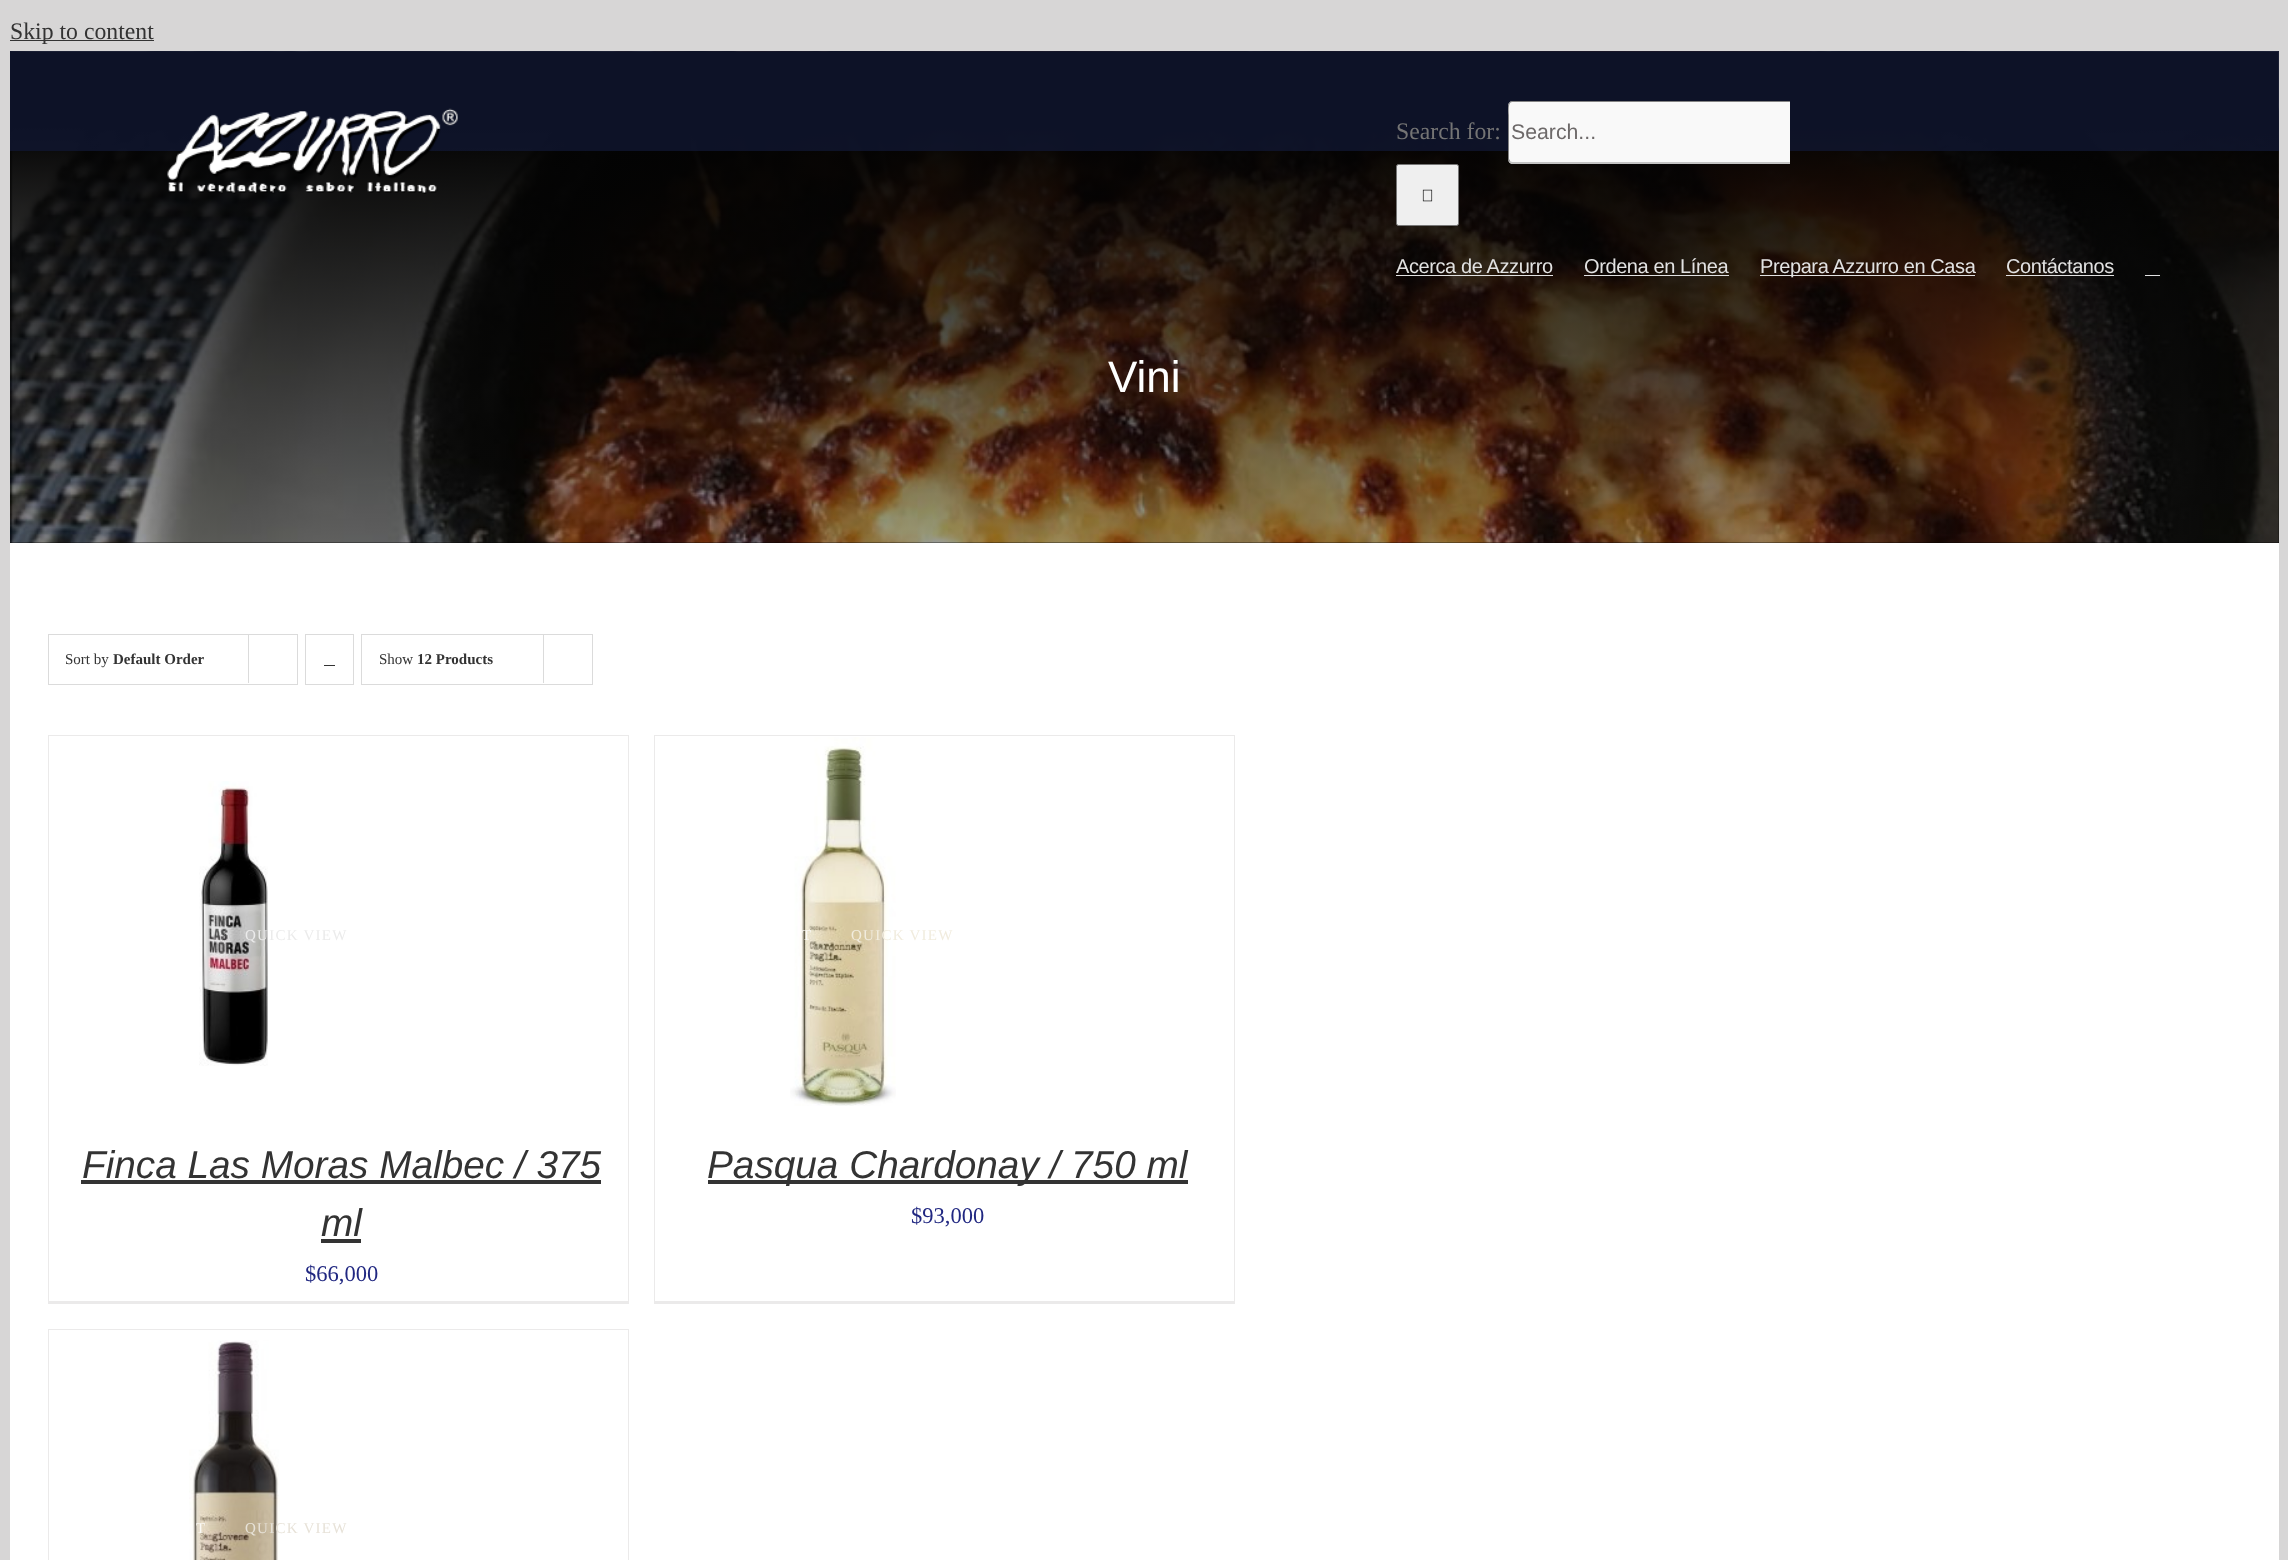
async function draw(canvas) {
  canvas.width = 2288;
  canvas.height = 1560;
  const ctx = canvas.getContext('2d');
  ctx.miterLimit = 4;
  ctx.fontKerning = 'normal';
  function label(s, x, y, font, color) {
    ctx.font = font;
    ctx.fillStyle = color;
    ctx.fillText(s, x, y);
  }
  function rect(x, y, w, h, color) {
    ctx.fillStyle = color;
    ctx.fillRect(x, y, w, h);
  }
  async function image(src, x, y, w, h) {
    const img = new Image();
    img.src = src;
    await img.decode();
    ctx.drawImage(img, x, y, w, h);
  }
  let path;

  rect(0, 0, 2288, 1560, '#d7d6d6');
  rect(10, 40, 144, 1, '#333');
  label('Skip to content', 10, 39, '23.75px Liberation Serif', '#333');
  rect(10, 543, 2269, 1017, '#fff');
  rect(10, 51, 2269, 492, '#030303');
  await image('assets/img3.png', 10, 51, 2269, 492);
  rect(10, 51, 2269, 100, '#111733c4');
  await image('assets/img1.png', 167, 108, 291, 86);
  label('Search for:', 1396, 139, '23.75px Liberation Serif', '#747474');
  ctx.fillStyle = '#f9f9f9';
  ctx.beginPath();
  ctx.roundRect(1508, 101, 282, 63, [5, 0, 0, 5]);
  ctx.fill();
  ctx.fillStyle = '#838383';
  path = new Path2D('M1512 102C1511 102 1510 103 1510 103H1509L1511 101H1790V102Z');
  ctx.fill(path);
  ctx.fillStyle = '#c4c4c4';
  path = new Path2D('M1790 164H1511L1509 162L1510 161L1512 162H1790Z');
  ctx.fill(path);
  ctx.fillStyle = '#838383';
  path = new Path2D('M1509 162C1508 161 1508 160 1508 159V106C1508 105 1508 104 1509 103H1510C1508 106 1509 114 1509 115V159L1510 161Z');
  ctx.fill(path);
  label('Search...', 1511, 139, '21.25px Liberation Sans', '#6d6969');
  ctx.fillStyle = '#efefef';
  ctx.beginPath();
  ctx.roundRect(1396.5, 164.5, 62, 61, 2);
  ctx.fill();
  ctx.strokeStyle = '#767676';
  ctx.stroke();
  await image('assets/img2.png', 1422, 189, 11, 13);
  ctx.letterSpacing = '-0.4px';
  label('Acerca de Azzurro', 1396, 273, '20px Liberation Sans', '#e2e2e2');
  rect(1396, 275, 157, 1, '#e2e2e2');
  label('Ordena en Línea', 1584, 273, '20px Liberation Sans', '#e2e2e2');
  rect(1584, 275, 145, 1, '#e2e2e2');
  rect(1760, 275, 215, 1, '#e2e2e2');
  label('Prepara Azzurro en Casa', 1760, 273, '20px Liberation Sans', '#e2e2e2');
  label('Contáctanos', 2006, 273, '20px Liberation Sans', '#e2e2e2');
  rect(2006, 275, 108, 1, '#e2e2e2');
  rect(2145, 275, 15, 1, '#e2e2e2');
  ctx.letterSpacing = '0px';
  label('Vini', 1108, 392, '44px Liberation Sans', '#fff');
  ctx.strokeStyle = '#dbdbdb';
  ctx.strokeRect(48.5, 634.5, 249, 50);
  label('Sort by', 65, 664, '15px Liberation Serif', '#333');
  label('Default Order', 113, 664, 'bold 15px Liberation Serif', '#333');
  rect(248, 634, 1, 49, '#dbdbdb');
  ctx.strokeRect(305.5, 634.5, 48, 50);
  rect(324, 665, 11, 1, '#333');
  ctx.strokeRect(361.5, 634.5, 231, 50);
  label('Show', 379, 664, '15px Liberation Serif', '#333');
  label('12 Products', 417, 664, 'bold 15px Liberation Serif', '#333');
  rect(543, 634, 1, 49, '#dbdbdb');
  rect(48, 735, 581, 1, '#ebeaea');
  rect(628, 735, 1, 569, '#ebeaea');
  rect(48, 1301, 581, 3, '#ebeaea');
  rect(48, 735, 1, 569, '#ebeaea');
  await image('assets/img4.png', 199, 781, 69, 285);
  label('/', 222, 940, '15px Liberation Serif', '#7a7979');
  ctx.letterSpacing = '1.25px';
  label('QUICK VIEW', 245, 940, '15px Liberation Serif', '#ebebeb');
  ctx.letterSpacing = '0px';
  label('Finca Las Moras Malbec / 375', 82, 1178, 'italic 38.75px Liberation Sans', '#333');
  rect(81, 1180, 520, 4, '#333');
  label('ml', 321, 1236, 'italic 38.75px Liberation Sans', '#333');
  rect(321, 1239, 40, 4, '#333');
  label('$66,000', 305, 1281, '22.5px Liberation Serif', '#202781');
  rect(654, 735, 581, 1, '#ebeaea');
  rect(1234, 735, 1, 569, '#ebeaea');
  rect(654, 1301, 581, 3, '#ebeaea');
  rect(654, 735, 1, 569, '#ebeaea');
  await image('assets/img5.png', 790, 737, 106, 369);
  ctx.letterSpacing = '1.25px';
  label('T', 802, 940, '15px Liberation Serif', '#faf9f5');
  label('QUICK VIEW', 851, 940, '15px Liberation Serif', '#f1ecde');
  rect(708, 1180, 480, 4, '#333');
  ctx.letterSpacing = '0px';
  label('Pasqua Chardonay / 750 ml', 707, 1178, 'italic 38.75px Liberation Sans', '#333');
  label('$93,000', 911, 1223, '22.5px Liberation Serif', '#202781');
  rect(48, 1329, 581, 1, '#ebeaea');
  rect(628, 1329, 1, 231, '#ebeaea');
  rect(48, 1329, 1, 231, '#ebeaea');
  await image('assets/img6.png', 189, 1340, 91, 220);
  ctx.letterSpacing = '1.25px';
  label('T', 196, 1533, '15px Liberation Serif', '#faf9f5');
  label('QUICK VIEW', 245, 1533, '15px Liberation Serif', '#e7e2d8');
}

draw(document.querySelector('canvas'));
